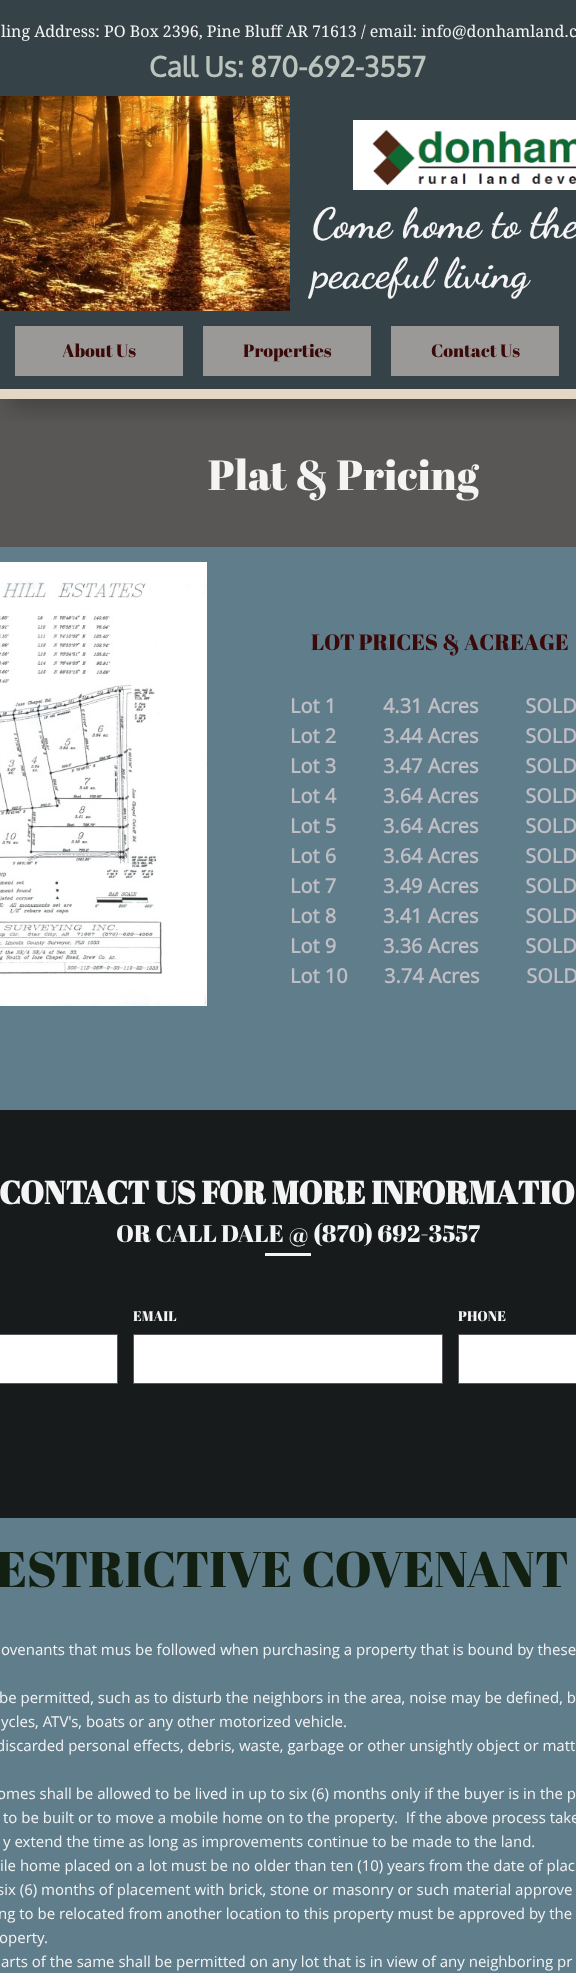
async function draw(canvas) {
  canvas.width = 576;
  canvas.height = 1973;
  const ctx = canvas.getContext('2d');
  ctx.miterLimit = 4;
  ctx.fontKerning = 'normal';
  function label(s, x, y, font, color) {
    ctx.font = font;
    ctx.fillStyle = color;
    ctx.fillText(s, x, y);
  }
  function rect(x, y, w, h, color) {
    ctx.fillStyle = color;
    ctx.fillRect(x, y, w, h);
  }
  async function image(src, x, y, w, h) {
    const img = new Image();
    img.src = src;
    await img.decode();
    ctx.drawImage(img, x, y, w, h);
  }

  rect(0, 0, 576, 1973, '#607d8b');
  rect(0, 0, 576, 389, '#354248');
  rect(0, 399, 576, 148, '#585755');
  ctx.save();
  ctx.beginPath();
  ctx.rect(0, 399, 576, 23);
  ctx.clip();
  ctx.fillStyle = '#00000036';
  ctx.filter = 'blur(10px)';
  ctx.beginPath();
  ctx.rect(10, 10, 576, 399);
  ctx.fill();
  ctx.filter = 'none';
  ctx.restore();
  rect(0, 389, 576, 10, '#e4d7c6');
  label('ling Address: PO Box 2396, Pine Bluff AR 71613 / email: info@donhamland.c', 1, 37, '16px Droid Serif', '#f4f4f5');
  label('Call Us: 870-692-3557', 149, 77, 'bold 28px Oxygen', '#bbc3bd');
  await image('assets/img1.png', 0, 96, 290, 215);
  await image('assets/img2.png', 353, 120, 223, 70);
  label('Come home to the', 312, 237, 'bold 42px Dancing Script', '#f4f4f5');
  label('peaceful living', 312, 287, 'bold 42px Dancing Script', '#f4f4f5');
  rect(15, 326, 168, 50, '#9b9997');
  label('About Us', 62, 357, '18px Abril Fatface', '#390a09');
  rect(203, 326, 168, 50, '#9b9997');
  label('Properties', 243, 357, '18px Abril Fatface', '#390a09');
  rect(391, 326, 168, 50, '#9b9997');
  label('Contact Us', 431, 357, '18px Abril Fatface', '#390a09');
  label('Plat & Pricing', 208, 490, '42px Abril Fatface', '#f4f4f5');
  await image('assets/img3.png', 0, 562, 207, 444);
  label('LOT PRICES & ACREAGE', 311, 650, '22px Abril Fatface', '#390a09');
  label('Lot 1         4.31 Acres         SOLD', 290, 713, 'bold 20px Open Sans', '#c0bec5');
  label('Lot 2         3.44 Acres         SOLD', 290, 743, 'bold 20px Open Sans', '#c0bec5');
  label('Lot 3         3.47 Acres         SOLD', 290, 773, 'bold 20px Open Sans', '#c0bec5');
  label('Lot 4         3.64 Acres         SOLD', 290, 803, 'bold 20px Open Sans', '#c0bec5');
  label('Lot 5         3.64 Acres         SOLD', 290, 833, 'bold 20px Open Sans', '#c0bec5');
  label('Lot 6         3.64 Acres         SOLD', 290, 863, 'bold 20px Open Sans', '#c0bec5');
  label('Lot 7         3.49 Acres         SOLD', 290, 893, 'bold 20px Open Sans', '#c0bec5');
  label('Lot 8         3.41 Acres         SOLD', 290, 923, 'bold 20px Open Sans', '#c0bec5');
  label('Lot 9         3.36 Acres         SOLD', 290, 953, 'bold 20px Open Sans', '#c0bec5');
  label('Lot 10       3.74 Acres         SOLD', 290, 983, 'bold 20px Open Sans', '#c0bec5');
  rect(0, 1110, 576, 408, '#181b1b');
  label('CONTACT US FOR MORE INFORMATIO', -1, 1204, 'bold 32px Abril Fatface', '#f4f4f5');
  label('OR CALL DALE @ (870) 692-3557', 116, 1242, '24px Abril Fatface', '#f4f4f5');
  rect(265, 1253, 46, 3, '#f4f4f5');
  label('EMAIL', 133, 1321, '14px Abril Fatface', '#f4f4f5');
  ctx.fillStyle = '#fff';
  ctx.beginPath();
  ctx.rect(133.5, 1334.5, 309, 49);
  ctx.fill();
  ctx.strokeStyle = '#595661';
  ctx.stroke();
  label('PHONE', 458, 1321, '14px Abril Fatface', '#f4f4f5');
  ctx.fillStyle = '#fff';
  ctx.beginPath();
  ctx.rect(458.5, 1334.5, 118, 49);
  ctx.fill();
  ctx.stroke();
  ctx.beginPath();
  ctx.rect(-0.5, 1334.5, 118, 49);
  ctx.fill();
  ctx.stroke();
  label('ESTRICTIVE COVENANT', -4, 1587, '50px Abril Fatface', '#122011');
  label('ovenants that mus be followed when purchasing a property that is bound by these', 1, 1655, '15px Open Sans', '#f4f4f5');
  label('be permitted, such as to disturb the neighbors in the area, noise may be defined, b', -1, 1703, '15px Open Sans', '#f4f4f5');
  label('ycles, ATV\'s, boats or any other motorized vehicle.', 1, 1727, '15px Open Sans', '#f4f4f5');
  label('discarded personal effects, debris, waste, garbage or other unsightly object or matt', -4, 1751, '15px Open Sans', '#f4f4f5');
  label('omes shall be allowed to be lived in up to six (6) months only if the buyer is in the p', -3, 1799, '15px Open Sans', '#f4f4f5');
  label('to be built or to move a mobile home on to the property.  If the above process take', 3, 1823, '15px Open Sans', '#f4f4f5');
  label('y extend the time as long as improvements continue to be made to the land.', 3, 1847, '15px Open Sans', '#f4f4f5');
  label('ile home placed on a lot must be no older than ten (10) years from the date of plac', 0, 1871, '15px Open Sans', '#f4f4f5');
  label('six (6) months of placement with brick, stone or masonry or such material approve', -3, 1895, '15px Open Sans', '#f4f4f5');
  label('ng to be relocated from another location to this property must be approved by the', -2, 1919, '15px Open Sans', '#f4f4f5');
  label('operty.', -1, 1943, '15px Open Sans', '#f4f4f5');
  label('arts of the same shall be permitted on any lot that is in view of any neighboring pr', 1, 1967, '15px Open Sans', '#f4f4f5');
}

draw(document.querySelector('canvas'));
